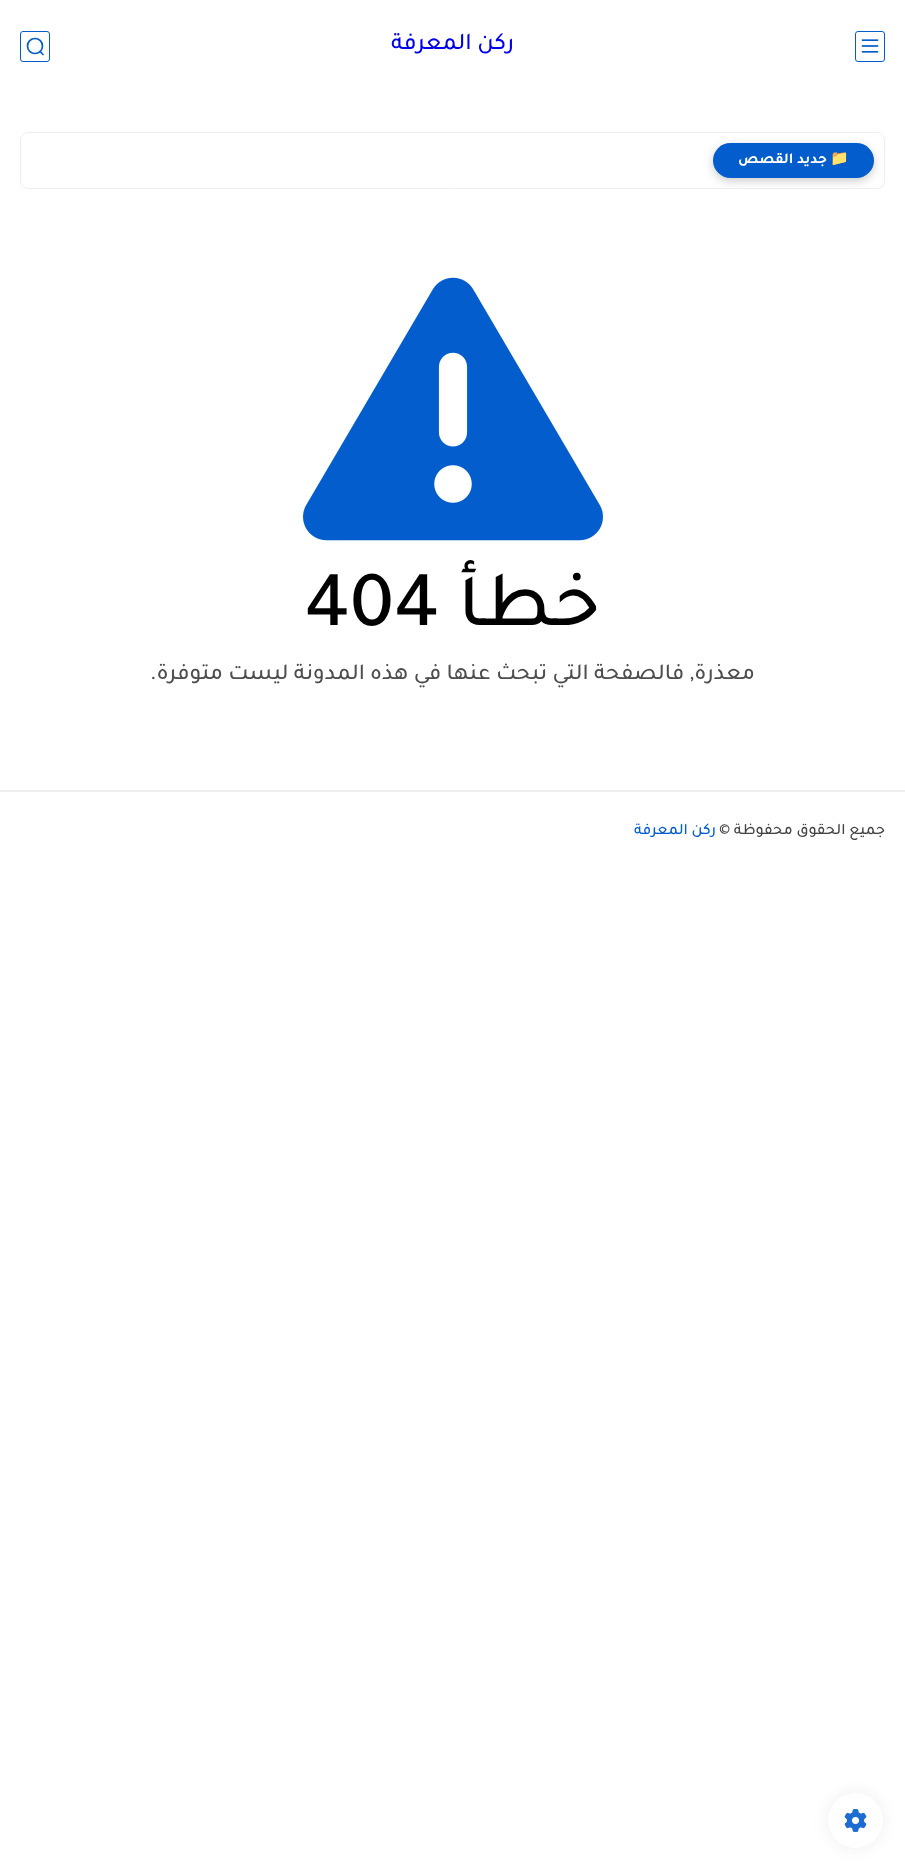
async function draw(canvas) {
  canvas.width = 905;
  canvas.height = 1868;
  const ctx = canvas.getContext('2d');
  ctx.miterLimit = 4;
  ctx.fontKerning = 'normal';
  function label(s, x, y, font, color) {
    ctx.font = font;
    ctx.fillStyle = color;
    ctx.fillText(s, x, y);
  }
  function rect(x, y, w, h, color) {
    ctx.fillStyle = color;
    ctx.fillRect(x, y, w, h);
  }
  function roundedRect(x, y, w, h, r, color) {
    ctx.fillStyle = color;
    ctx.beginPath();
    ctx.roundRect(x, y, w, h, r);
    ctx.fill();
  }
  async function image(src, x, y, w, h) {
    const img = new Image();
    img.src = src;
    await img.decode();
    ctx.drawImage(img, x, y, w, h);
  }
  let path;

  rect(0, 0, 905, 1868, '#fff');
  ctx.beginPath();
  ctx.roundRect(855.5, 31.5, 29, 30, 2.5);
  ctx.strokeStyle = '#035dcd';
  ctx.stroke();
  await image('assets/img1.png', 861, 39, 18, 14);
  ctx.direction = 'rtl';
  label('ركن المعرفة', 514, 49, '500 24px Tajawal', '#00e');
  ctx.beginPath();
  ctx.roundRect(20.5, 31.5, 29, 30, 2.5);
  ctx.stroke();
  ctx.beginPath();
  ctx.arc(35, 46, 7.5, 0, 2 * Math.PI);
  ctx.lineWidth = 1.7;
  ctx.stroke();
  path = new Path2D('M40 51.5L43 54.5');
  ctx.lineCap = 'round';
  ctx.lineJoin = 'round';
  ctx.stroke(path);
  ctx.beginPath();
  ctx.roundRect(20.5, 132.5, 864, 56, 7.5);
  ctx.strokeStyle = '#eee';
  ctx.lineWidth = 1;
  ctx.lineJoin = 'miter';
  ctx.stroke();
  ctx.fillStyle = '#00000033';
  ctx.filter = 'blur(5px)';
  ctx.beginPath();
  ctx.roundRect(713, 146, 161, 35, 17.5);
  ctx.fill();
  ctx.filter = 'none';
  roundedRect(713, 143, 161, 35, 17.5, '#035dcd');
  label('📁', 849, 163, 'bold 15px Noto Color Emoji', '#fff');
  label('جديد القصص', 827, 163, 'bold 15px Tajawal', '#fff');
  await image('assets/img2.png', 303, 277, 300, 264);
  label('خطأ', 600, 625, '500 80px Tajawal', '#000');
  ctx.direction = 'ltr';
  label('404', 305, 625, '500 80px Tajawal', '#000');
  ctx.direction = 'rtl';
  label('معذرة, فالصفحة التي تبحث عنها في هذه المدونة ليست متوفرة.', 755, 679, '500 23px Tajawal', '#4e4e4e');
  rect(0, 790, 905, 2, '#eee');
  label('جميع الحقوق محفوظة', 885, 834, '500 16px Tajawal', '#444');
  ctx.direction = 'ltr';
  label('©', 719, 834, '500 16px Tajawal', '#444');
  ctx.direction = 'rtl';
  label('ركن المعرفة', 716, 834, '500 16px Tajawal', '#035dcd');
  ctx.fillStyle = '#1a1a1a14';
  ctx.filter = 'blur(7.5px)';
  ctx.beginPath();
  ctx.roundRect(828, 1793, 55, 55, 27.5);
  ctx.fill();
  ctx.filter = 'none';
  ctx.fillStyle = '#fff';
  ctx.beginPath();
  ctx.arc(855.5, 1820.5, 27.5, 0, 2 * Math.PI);
  ctx.fill();
  await image('assets/img3.png', 844, 1809, 23, 23);
}

draw(document.querySelector('canvas'));
